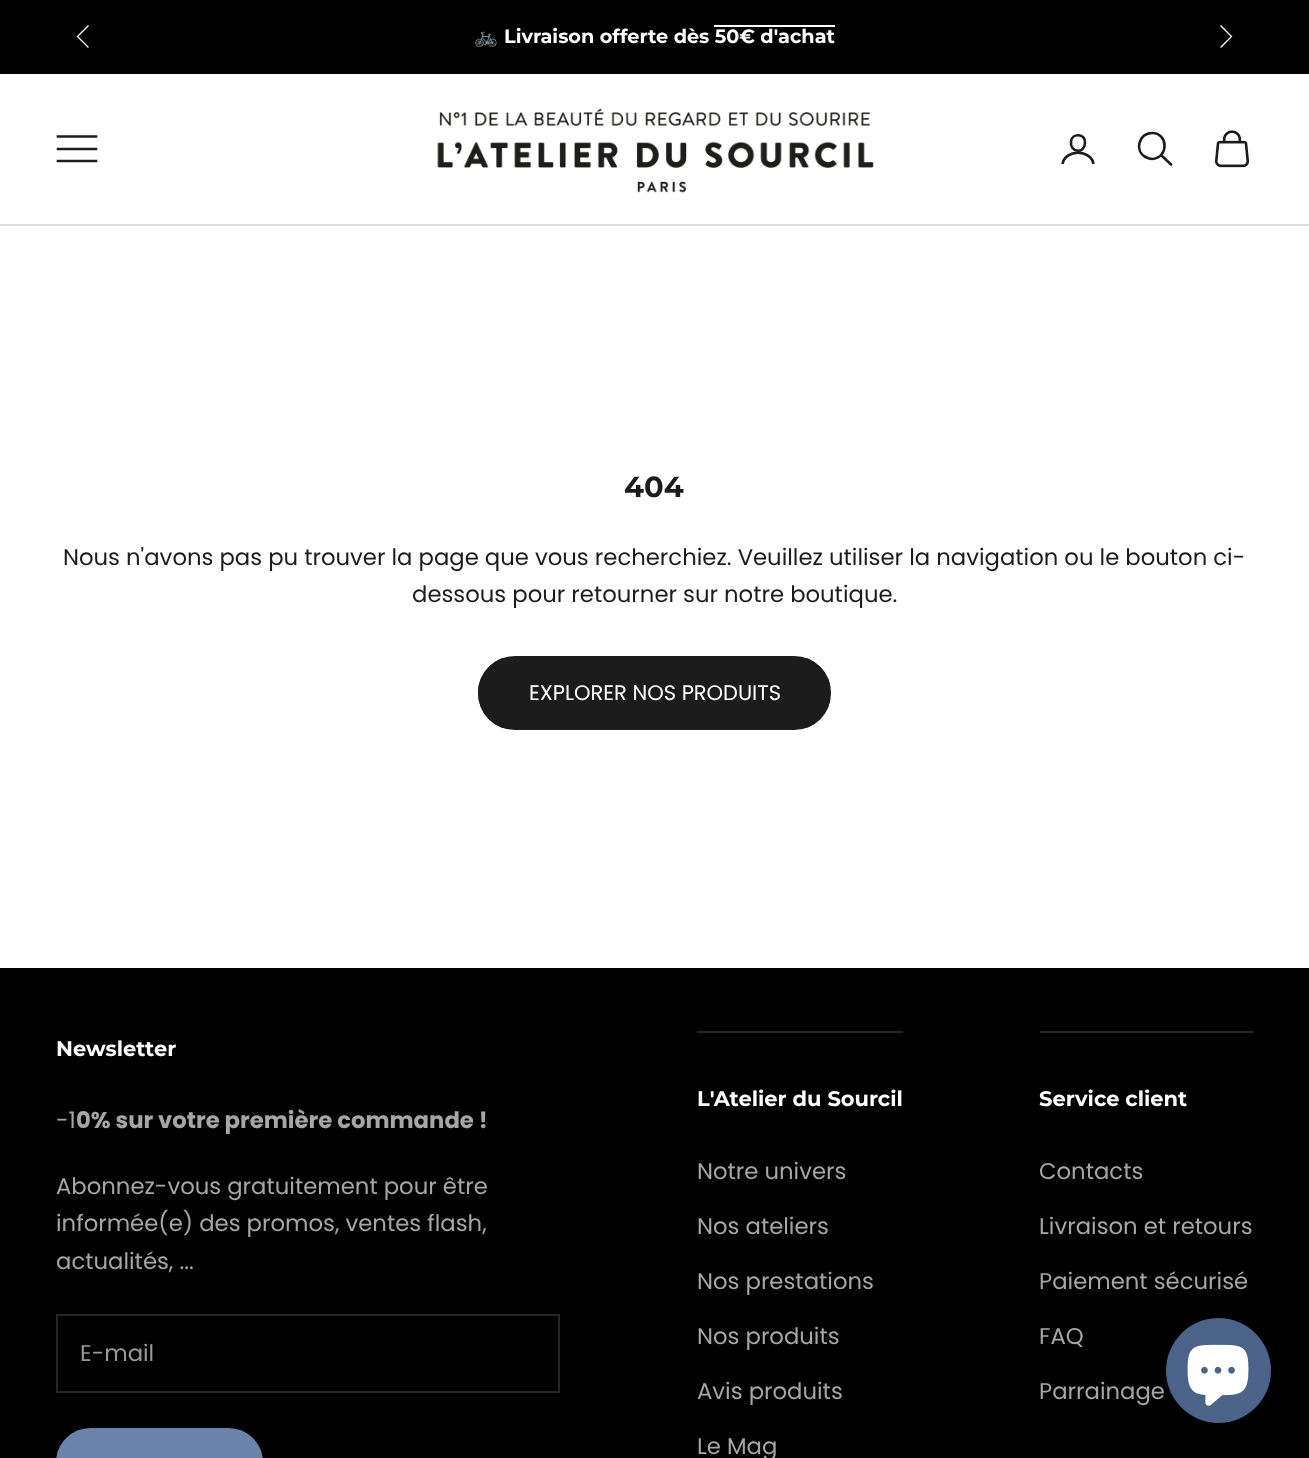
async function draw(canvas) {
  canvas.width = 1309;
  canvas.height = 1458;
  const ctx = canvas.getContext('2d');
  ctx.miterLimit = 4;
  ctx.fontKerning = 'normal';
  function label(s, x, y, font, color) {
    ctx.font = font;
    ctx.fillStyle = color;
    ctx.fillText(s, x, y);
  }
  function rect(x, y, w, h, color) {
    ctx.fillStyle = color;
    ctx.fillRect(x, y, w, h);
  }
  async function image(src, x, y, w, h) {
    const img = new Image();
    img.src = src;
    await img.decode();
    ctx.drawImage(img, x, y, w, h);
  }
  let path;

  rect(0, 0, 1309, 1458, '#fff');
  rect(0, 0, 1309, 74, '#000');
  path = new Path2D('M88 26L77.5 36.5L88 47');
  ctx.strokeStyle = '#fff';
  ctx.lineWidth = 1.3;
  ctx.lineCap = 'square';
  ctx.stroke(path);
  label('🚲', 474, 43, 'bold 19.25px Noto Color Emoji', '#fff');
  rect(714, 25, 121, 2, '#fff');
  label('Livraison offerte dès 50€ d\'achat', 504, 43, 'bold 19.25px Montserrat', '#fff');
  path = new Path2D('M1221 47L1231.5 36.5L1221 26');
  ctx.stroke(path);
  rect(0, 224, 1309, 2, '#ddd');
  path = new Path2D('M58 161H96M58 149H96M58 136.5H96');
  ctx.strokeStyle = '#1c1c1c';
  ctx.lineWidth = 2.6;
  ctx.stroke(path);
  await image('assets/img1.png', 437, 108, 437, 85);
  path = new Path2D('M1085 143C1084.5 154.5 1069.5 152.5 1071 141.5C1072 132.5 1086 133.5 1085 143Z');
  ctx.lineCap = 'round';
  ctx.lineJoin = 'round';
  ctx.stroke(path);
  path = new Path2D('M1062.5 164C1065 149 1091 149 1093.5 164');
  ctx.lineCap = 'butt';
  ctx.lineJoin = 'miter';
  ctx.stroke(path);
  path = new Path2D('M1152 133C1139 133 1134 150.5 1145.5 157C1147.5 158 1150 159 1152 159C1169 158 1168.5 133 1152 133Z');
  ctx.stroke(path);
  path = new Path2D('M1161.5 155.5L1171 164.5');
  ctx.lineCap = 'round';
  ctx.stroke(path);
  await image('assets/img2.png', 1214, 130, 36, 38);
  label('404', 624, 497, 'bold 29px Montserrat', '#1c1c1c');
  label('Nous n\'avons pas pu trouver la page que vous recherchiez. Veuillez utiliser la navigation ou le bouton ci-', 63, 565, '22.75px Poppins', '#1c1c1c');
  label('dessous pour retourner sur notre boutique.', 412, 602, '22.75px Poppins', '#1c1c1c');
  ctx.save();
  ctx.beginPath();
  ctx.roundRect(478, 656, 353, 74, 37);
  ctx.clip();
  rect(478, 658, 352, 70, '#1c1c1c');
  ctx.restore();
  ctx.beginPath();
  ctx.roundRect(479, 657, 351, 72, 36);
  ctx.lineWidth = 2;
  ctx.stroke();
  label('EXPLORER NOS PRODUITS', 529, 700, '21px Poppins', '#fff');
  rect(0, 968, 1309, 490, '#000');
  label('Newsletter', 56, 1056, 'bold 21px Montserrat', '#fff');
  label('-1', 56, 1128, '22.75px Poppins', '#a6a6a6');
  label('0% sur votre première commande !', 76, 1128, 'bold 22.75px Poppins', '#a6a6a6');
  label('Abonnez-vous gratuitement pour être', 56, 1194, '22.75px Poppins', '#a6a6a6');
  label('informée(e) des promos, ventes flash,', 56, 1231, '22.75px Poppins', '#a6a6a6');
  label('actualités, ...', 56, 1269, '22.75px Poppins', '#a6a6a6');
  ctx.strokeStyle = '#262626';
  ctx.strokeRect(57, 1315, 502, 77);
  label('E-mail', 80, 1361, '22.75px Poppins', '#999');
  ctx.save();
  ctx.beginPath();
  ctx.roundRect(56, 1428, 207, 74, 37);
  ctx.clip();
  rect(56, 1430, 205, 28, '#6b83ab');
  ctx.restore();
  ctx.beginPath();
  ctx.roundRect(57, 1429, 205, 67, 36);
  ctx.strokeStyle = '#6b83ab';
  ctx.stroke();
  rect(697, 1031, 206, 2, '#262626');
  label('L\'Atelier du Sourcil', 697, 1106, 'bold 21px Montserrat', '#fff');
  label('Notre univers', 697, 1179, '22.75px Poppins', '#a6a6a6');
  label('Nos ateliers', 697, 1234, '22.75px Poppins', '#a6a6a6');
  label('Nos prestations', 697, 1289, '22.75px Poppins', '#a6a6a6');
  label('Nos produits', 697, 1344, '22.75px Poppins', '#a6a6a6');
  label('Avis produits', 697, 1399, '22.75px Poppins', '#a6a6a6');
  label('Le Mag', 697, 1454, '22.75px Poppins', '#a6a6a6');
  rect(1040, 1031, 213, 2, '#262626');
  label('Service client', 1039, 1106, 'bold 21px Montserrat', '#fff');
  label('Contacts', 1039, 1179, '22.75px Poppins', '#a6a6a6');
  label('Livraison et retours', 1039, 1234, '22.75px Poppins', '#a6a6a6');
  label('Paiement sécurisé', 1039, 1289, '22.75px Poppins', '#a6a6a6');
  label('FAQ', 1039, 1344, '22.75px Poppins', '#a6a6a6');
  label('Parrainage', 1039, 1399, '22.75px Poppins', '#a6a6a6');
  ctx.fillStyle = '#4b6389';
  ctx.beginPath();
  ctx.arc(1218.5, 1370.5, 52.5, 0, 2 * Math.PI);
  ctx.fill();
  await image('assets/img3.png', 1187, 1344, 62, 62);
}

draw(document.querySelector('canvas'));
